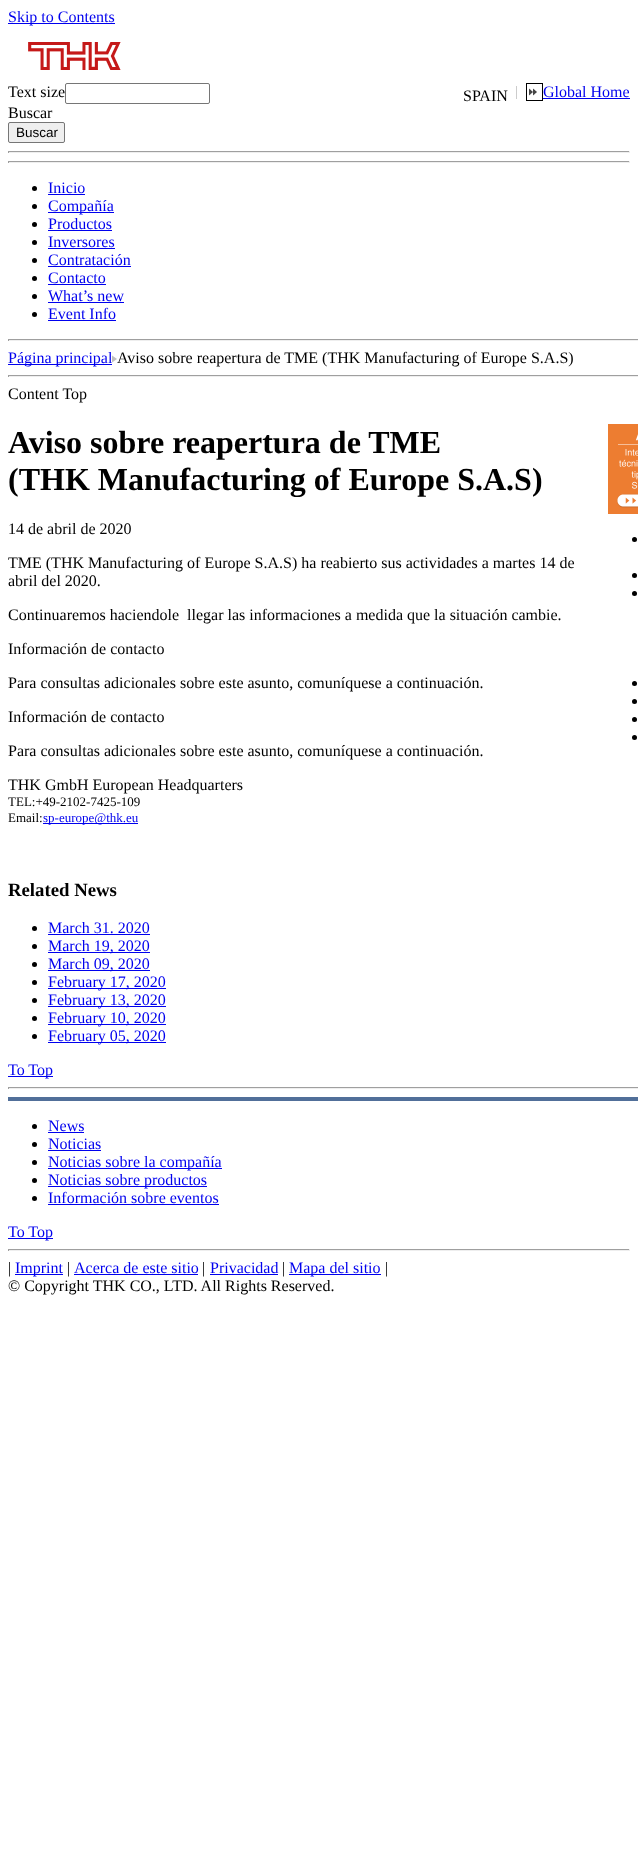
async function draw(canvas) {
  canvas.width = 638;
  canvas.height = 1861;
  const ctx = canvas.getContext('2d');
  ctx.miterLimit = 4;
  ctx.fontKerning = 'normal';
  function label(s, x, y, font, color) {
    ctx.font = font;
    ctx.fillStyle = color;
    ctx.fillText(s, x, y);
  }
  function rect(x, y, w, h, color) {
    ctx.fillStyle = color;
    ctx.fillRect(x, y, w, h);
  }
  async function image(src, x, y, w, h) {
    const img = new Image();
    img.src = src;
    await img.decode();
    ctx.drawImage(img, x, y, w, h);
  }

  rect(0, 0, 638, 1861, '#fff');
  rect(8, 23, 107, 1, '#00e');
  label('Skip to Contents', 8, 22, '16px Liberation Serif', '#00e');
  await image('assets/img1.png', 28, 42, 93, 28);
  label('Text size', 8, 97, '16px Liberation Serif', '#000');
  rect(516, 86, 1, 13, '#ccc');
  ctx.strokeStyle = '#000';
  ctx.strokeRect(526.5, 83.5, 16, 17);
  label('SPAIN', 463, 101, '16px Liberation Serif', '#000');
  await image('assets/img2.png', 529, 88, 8, 8);
  label('Global Home', 543, 97, '16px Liberation Serif', '#00e');
  rect(543, 98, 87, 1, '#00e');
  ctx.beginPath();
  ctx.roundRect(65.5, 83.5, 144, 20, 1.5);
  ctx.strokeStyle = '#767676';
  ctx.stroke();
  label('Buscar', 8, 118, '16px Liberation Serif', '#000');
  ctx.fillStyle = '#efefef';
  ctx.beginPath();
  ctx.roundRect(8.5, 122.5, 56, 20, 1.5);
  ctx.fill();
  ctx.stroke();
  label('Buscar', 16, 137, '13.5px Liberation Sans', '#000');
  rect(8, 151, 622, 1, '#9f9f9f');
  rect(629, 151, 1, 2, '#eee');
  rect(8, 152, 622, 1, '#eee');
  rect(8, 151, 1, 2, '#9f9f9f');
  rect(8, 161, 622, 1, '#9f9f9f');
  rect(629, 161, 1, 2, '#eee');
  rect(8, 162, 622, 1, '#eee');
  rect(8, 161, 1, 2, '#9f9f9f');
  ctx.fillStyle = '#000';
  ctx.beginPath();
  ctx.arc(34.5, 188.5, 2.5, 0, 2 * Math.PI);
  ctx.fill();
  label('Inicio', 48, 193, '16px Liberation Serif', '#00e');
  rect(48, 194, 37, 1, '#00e');
  ctx.fillStyle = '#000';
  ctx.beginPath();
  ctx.arc(34.5, 206.5, 2.5, 0, 2 * Math.PI);
  ctx.fill();
  rect(48, 212, 66, 1, '#00e');
  label('Compañía', 48, 211, '16px Liberation Serif', '#00e');
  ctx.fillStyle = '#000';
  ctx.beginPath();
  ctx.arc(34.5, 224.5, 2.5, 0, 2 * Math.PI);
  ctx.fill();
  label('Productos', 48, 229, '16px Liberation Serif', '#00e');
  rect(48, 230, 64, 1, '#00e');
  ctx.fillStyle = '#000';
  ctx.beginPath();
  ctx.arc(34.5, 242.5, 2.5, 0, 2 * Math.PI);
  ctx.fill();
  label('Inversores', 48, 247, '16px Liberation Serif', '#00e');
  rect(48, 248, 67, 1, '#00e');
  ctx.fillStyle = '#000';
  ctx.beginPath();
  ctx.arc(34.5, 260.5, 2.5, 0, 2 * Math.PI);
  ctx.fill();
  label('Contratación', 48, 265, '16px Liberation Serif', '#00e');
  rect(48, 266, 83, 1, '#00e');
  ctx.fillStyle = '#000';
  ctx.beginPath();
  ctx.arc(34.5, 278.5, 2.5, 0, 2 * Math.PI);
  ctx.fill();
  label('Contacto', 48, 283, '16px Liberation Serif', '#00e');
  rect(48, 284, 58, 1, '#00e');
  ctx.fillStyle = '#000';
  ctx.beginPath();
  ctx.arc(34.5, 296.5, 2.5, 0, 2 * Math.PI);
  ctx.fill();
  label('What’s new', 48, 301, '16px Liberation Serif', '#00e');
  rect(48, 302, 76, 1, '#00e');
  ctx.fillStyle = '#000';
  ctx.beginPath();
  ctx.arc(34.5, 314.5, 2.5, 0, 2 * Math.PI);
  ctx.fill();
  label('Event Info', 48, 319, '16px Liberation Serif', '#00e');
  rect(48, 320, 68, 1, '#00e');
  rect(8, 339, 630, 1, '#9f9f9f');
  rect(8, 340, 630, 1, '#eee');
  rect(8, 339, 1, 2, '#9f9f9f');
  rect(8, 364, 104, 1, '#00e');
  label('Página principal', 8, 363, '16px Liberation Serif', '#00e');
  await image('assets/img3.png', 112, 355, 5, 8);
  label('Aviso sobre reapertura de TME (THK Manufacturing of Europe S.A.S)', 117, 363, '16px Liberation Serif', '#000');
  rect(8, 375, 630, 1, '#9f9f9f');
  rect(8, 376, 630, 1, '#eee');
  rect(8, 375, 1, 2, '#9f9f9f');
  label('Content Top', 8, 399, '16px Liberation Serif', '#000');
  label('Aviso sobre reapertura de TME', 8, 453, 'bold 32px Liberation Serif', '#000');
  label('(THK Manufacturing of Europe S.A.S)', 8, 490, 'bold 32px Liberation Serif', '#000');
  label('14 de abril de 2020', 8, 534, '16px Liberation Serif', '#000');
  label('TME (THK Manufacturing of Europe S.A.S) ha reabierto sus actividades a martes 14 de', 8, 568, '16px Liberation Serif', '#000');
  label('abril del 2020.', 8, 586, '16px Liberation Serif', '#000');
  label('Continuaremos haciendole  llegar las informaciones a medida que la situación cambie.', 8, 620, '16px Liberation Serif', '#000');
  label('Información de contacto', 8, 654, '16px Liberation Serif', '#000');
  label('Para consultas adicionales sobre este asunto, comuníquese a continuación.', 8, 688, '16px Liberation Serif', '#000');
  label('Información de contacto', 8, 722, '16px Liberation Serif', '#000');
  label('Para consultas adicionales sobre este asunto, comuníquese a continuación.', 8, 756, '16px Liberation Serif', '#000');
  label('THK GmbH European Headquarters', 8, 790, '16px Liberation Serif', '#000');
  label('TEL:+49-2102-7425-109', 8, 806, '13px Liberation Serif', '#000');
  label('Email:', 8, 822, '13px Liberation Serif', '#000');
  rect(43, 823, 95, 1, '#00e');
  label('sp-europe@thk.eu', 43, 822, '13px Liberation Serif', '#00e');
  label('Related News', 8, 896, 'bold 18.75px Liberation Serif', '#000');
  ctx.beginPath();
  ctx.arc(34.5, 928.5, 2.5, 0, 2 * Math.PI);
  ctx.fill();
  label('March 31. 2020', 48, 933, '16px Liberation Serif', '#00e');
  rect(48, 934, 102, 1, '#00e');
  ctx.fillStyle = '#000';
  ctx.beginPath();
  ctx.arc(34.5, 946.5, 2.5, 0, 2 * Math.PI);
  ctx.fill();
  rect(48, 952, 102, 1, '#00e');
  label('March 19, 2020', 48, 951, '16px Liberation Serif', '#00e');
  ctx.fillStyle = '#000';
  ctx.beginPath();
  ctx.arc(34.5, 964.5, 2.5, 0, 2 * Math.PI);
  ctx.fill();
  rect(48, 970, 102, 1, '#00e');
  label('March 09, 2020', 48, 969, '16px Liberation Serif', '#00e');
  ctx.fillStyle = '#000';
  ctx.beginPath();
  ctx.arc(34.5, 982.5, 2.5, 0, 2 * Math.PI);
  ctx.fill();
  rect(48, 988, 118, 1, '#00e');
  label('February 17, 2020', 48, 987, '16px Liberation Serif', '#00e');
  ctx.fillStyle = '#000';
  ctx.beginPath();
  ctx.arc(34.5, 1000.5, 2.5, 0, 2 * Math.PI);
  ctx.fill();
  rect(48, 1006, 118, 1, '#00e');
  label('February 13, 2020', 48, 1005, '16px Liberation Serif', '#00e');
  ctx.fillStyle = '#000';
  ctx.beginPath();
  ctx.arc(34.5, 1018.5, 2.5, 0, 2 * Math.PI);
  ctx.fill();
  rect(48, 1024, 118, 1, '#00e');
  label('February 10, 2020', 48, 1023, '16px Liberation Serif', '#00e');
  ctx.fillStyle = '#000';
  ctx.beginPath();
  ctx.arc(34.5, 1036.5, 2.5, 0, 2 * Math.PI);
  ctx.fill();
  rect(48, 1042, 118, 1, '#00e');
  label('February 05, 2020', 48, 1041, '16px Liberation Serif', '#00e');
  rect(8, 1076, 45, 1, '#00e');
  label('To Top', 8, 1075, '16px Liberation Serif', '#00e');
  await image('assets/img4.png', 608, 424, 30, 90);
  ctx.fillStyle = '#000';
  ctx.beginPath();
  ctx.arc(634.5, 539.5, 2.5, 0, 2 * Math.PI);
  ctx.fill();
  ctx.beginPath();
  ctx.arc(634.5, 575.5, 2.5, 0, 2 * Math.PI);
  ctx.fill();
  ctx.beginPath();
  ctx.arc(634.5, 593.5, 2.5, 0, 2 * Math.PI);
  ctx.fill();
  ctx.beginPath();
  ctx.arc(634.5, 683.5, 2.5, 0, 2 * Math.PI);
  ctx.fill();
  ctx.beginPath();
  ctx.arc(634.5, 701.5, 2.5, 0, 2 * Math.PI);
  ctx.fill();
  ctx.beginPath();
  ctx.arc(634.5, 719.5, 2.5, 0, 2 * Math.PI);
  ctx.fill();
  ctx.beginPath();
  ctx.arc(634.5, 737.5, 2.5, 0, 2 * Math.PI);
  ctx.fill();
  rect(8, 1087, 630, 1, '#9f9f9f');
  rect(8, 1088, 630, 1, '#eee');
  rect(8, 1087, 1, 2, '#9f9f9f');
  rect(8, 1097, 630, 4, '#516f99');
  ctx.fillStyle = '#000';
  ctx.beginPath();
  ctx.arc(34.5, 1126.5, 2.5, 0, 2 * Math.PI);
  ctx.fill();
  label('News', 48, 1131, '16px Liberation Serif', '#00e');
  rect(48, 1132, 36, 1, '#00e');
  ctx.fillStyle = '#000';
  ctx.beginPath();
  ctx.arc(34.5, 1144.5, 2.5, 0, 2 * Math.PI);
  ctx.fill();
  label('Noticias', 48, 1149, '16px Liberation Serif', '#00e');
  rect(48, 1150, 53, 1, '#00e');
  ctx.fillStyle = '#000';
  ctx.beginPath();
  ctx.arc(34.5, 1162.5, 2.5, 0, 2 * Math.PI);
  ctx.fill();
  rect(48, 1168, 174, 1, '#00e');
  label('Noticias sobre la compañía', 48, 1167, '16px Liberation Serif', '#00e');
  ctx.fillStyle = '#000';
  ctx.beginPath();
  ctx.arc(34.5, 1180.5, 2.5, 0, 2 * Math.PI);
  ctx.fill();
  rect(48, 1186, 159, 1, '#00e');
  label('Noticias sobre productos', 48, 1185, '16px Liberation Serif', '#00e');
  ctx.fillStyle = '#000';
  ctx.beginPath();
  ctx.arc(34.5, 1198.5, 2.5, 0, 2 * Math.PI);
  ctx.fill();
  label('Información sobre eventos', 48, 1203, '16px Liberation Serif', '#00e');
  rect(48, 1204, 171, 1, '#00e');
  rect(8, 1238, 45, 1, '#00e');
  label('To Top', 8, 1237, '16px Liberation Serif', '#00e');
  rect(8, 1249, 622, 1, '#9f9f9f');
  rect(629, 1249, 1, 2, '#eee');
  rect(8, 1250, 622, 1, '#eee');
  rect(8, 1249, 1, 2, '#9f9f9f');
  label('|', 8, 1273, '16px Liberation Serif', '#000');
  rect(15, 1274, 48, 1, '#00e');
  label('Imprint', 15, 1273, '16px Liberation Serif', '#00e');
  label('|', 67, 1273, '16px Liberation Serif', '#000');
  label('Acerca de este sitio', 74, 1273, '16px Liberation Serif', '#00e');
  rect(74, 1274, 124, 1, '#00e');
  label('|', 202, 1273, '16px Liberation Serif', '#000');
  label('Privacidad', 210, 1273, '16px Liberation Serif', '#00e');
  rect(210, 1274, 68, 1, '#00e');
  label('|', 282, 1273, '16px Liberation Serif', '#000');
  rect(289, 1274, 92, 1, '#00e');
  label('Mapa del sitio', 289, 1273, '16px Liberation Serif', '#00e');
  label('|', 385, 1273, '16px Liberation Serif', '#000');
  label('© Copyright THK CO., LTD. All Rights Reserved.', 8, 1291, '16px Liberation Serif', '#000');
}

draw(document.querySelector('canvas'));
